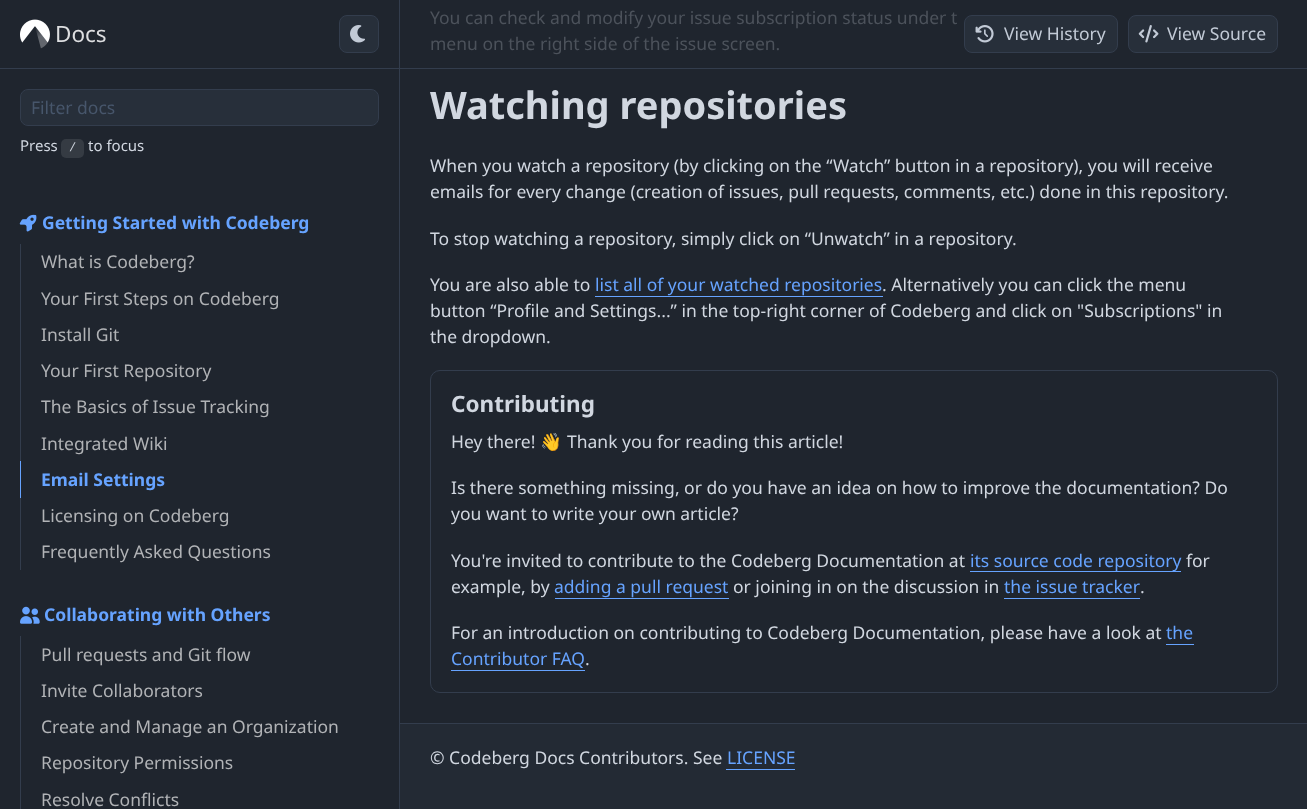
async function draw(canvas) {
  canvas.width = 1307;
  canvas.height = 809;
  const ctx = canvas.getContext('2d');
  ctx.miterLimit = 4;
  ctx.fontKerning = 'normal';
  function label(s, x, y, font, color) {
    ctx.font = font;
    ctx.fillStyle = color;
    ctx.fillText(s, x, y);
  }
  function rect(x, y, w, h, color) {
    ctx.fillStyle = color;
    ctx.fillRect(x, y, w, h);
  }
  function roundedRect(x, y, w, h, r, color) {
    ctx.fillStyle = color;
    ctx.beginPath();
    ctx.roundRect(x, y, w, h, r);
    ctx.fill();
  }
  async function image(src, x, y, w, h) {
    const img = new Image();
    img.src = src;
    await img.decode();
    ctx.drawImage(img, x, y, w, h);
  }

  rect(0, 0, 1307, 809, '#1f252e');
  rect(399, 0, 1, 809, '#333d4d');
  rect(0, 68, 399, 1, '#333d4d');
  await image('assets/img1.png', 20, 19, 30, 30);
  label('Docs', 55, 42, '22.5px Noto Sans', '#dddee0');
  ctx.fillStyle = '#272f3a';
  ctx.beginPath();
  ctx.roundRect(339.5, 15.5, 39, 37, 7.5);
  ctx.fill();
  ctx.strokeStyle = '#333d4d';
  ctx.stroke();
  await image('assets/img2.png', 350, 25, 15, 18);
  roundedRect(21, 90, 357, 35, 6, '#272f3a');
  ctx.beginPath();
  ctx.roundRect(20.5, 89.5, 358, 36, 7.5);
  ctx.stroke();
  label('Filter docs', 31, 114, '17.5px Noto Sans', '#47566b');
  label('Press', 20, 151, '15px Noto Sans', '#d1d7e0');
  roundedRect(61, 139, 23, 19, 5, '#353b43');
  label('/', 69, 151, '12px Liberation Mono', '#d1d7e0');
  label('to focus', 88, 151, '15px Noto Sans', '#d1d7e0');
  await image('assets/img3.png', 19, 214, 18, 18);
  label('Getting Started with Codeberg', 42, 229, 'bold 17.5px Noto Sans', '#66a3ff');
  rect(20, 244, 1, 217, '#333d4d');
  label('What is Codeberg?', 41, 268, '17.5px Noto Sans', '#b1b3b6');
  label('Your First Steps on Codeberg', 41, 305, '17.5px Noto Sans', '#b1b3b6');
  label('Install Git', 41, 341, '17.5px Noto Sans', '#b1b3b6');
  label('Your First Repository', 41, 377, '17.5px Noto Sans', '#b1b3b6');
  label('The Basics of Issue Tracking', 41, 413, '17.5px Noto Sans', '#b1b3b6');
  label('Integrated Wiki', 41, 450, '17.5px Noto Sans', '#b1b3b6');
  rect(20, 461, 1, 37, '#66a3ff');
  label('Email Settings', 41, 486, 'bold 17.5px Noto Sans', '#66a3ff');
  rect(20, 498, 1, 72, '#333d4d');
  label('Licensing on Codeberg', 41, 522, '17.5px Noto Sans', '#b1b3b6');
  label('Frequently Asked Questions', 41, 558, '17.5px Noto Sans', '#b1b3b6');
  await image('assets/img4.png', 20, 606, 20, 18);
  label('Collaborating with Others', 44, 621, 'bold 17.5px Noto Sans', '#66a3ff');
  rect(20, 636, 1, 173, '#333d4d');
  label('Pull requests and Git flow', 41, 661, '17.5px Noto Sans', '#b1b3b6');
  label('Invite Collaborators', 41, 697, '17.5px Noto Sans', '#b1b3b6');
  label('Create and Manage an Organization', 41, 733, '17.5px Noto Sans', '#b1b3b6');
  label('Repository Permissions', 41, 769, '17.5px Noto Sans', '#b1b3b6');
  label('Resolve Conflicts', 41, 806, '17.5px Noto Sans', '#b1b3b6');
  label('You can check and modify your issue subscription status under t', 430, 24, '17.5px Noto Sans', '#4c525b');
  label('menu on the right side of the issue screen.', 430, 50, '17.5px Noto Sans', '#4c525b');
  label('Watching repositories', 430, 119, 'bold 38px Noto Sans', '#d1d7e0');
  label('When you watch a repository (by clicking on the “Watch” button in a repository), you will receive', 430, 172, '17.5px Noto Sans', '#d1d7e0');
  label('emails for every change (creation of issues, pull requests, comments, etc.) done in this repository.', 430, 198, '17.5px Noto Sans', '#d1d7e0');
  label('To stop watching a repository, simply click on “Unwatch” in a repository.', 430, 245, '17.5px Noto Sans', '#d1d7e0');
  label('You are also able to', 430, 291, '17.5px Noto Sans', '#d1d7e0');
  label('list all of your watched repositories', 595, 291, '17.5px Noto Sans', '#66a3ff');
  rect(595, 296, 288, 1, '#66a3ff');
  label('. Alternatively you can click the menu', 882, 291, '17.5px Noto Sans', '#d1d7e0');
  label('button “Profile and Settings...” in the top-right corner of Codeberg and click on "Subscriptions" in', 430, 317, '17.5px Noto Sans', '#d1d7e0');
  label('the dropdown.', 430, 343, '17.5px Noto Sans', '#d1d7e0');
  ctx.beginPath();
  ctx.roundRect(430.5, 370.5, 847, 322, 9.5);
  ctx.stroke();
  label('Contributing', 451, 412, 'bold 22.5px Noto Sans', '#d1d7e0');
  label('Hey there!', 451, 448, '17.5px Noto Sans', '#d1d7e0');
  label('👋', 540, 448, '17.5px Noto Color Emoji', '#d1d7e0');
  label('Thank you for reading this article!', 567, 448, '17.5px Noto Sans', '#d1d7e0');
  label('Is there something missing, or do you have an idea on how to improve the documentation? Do', 451, 494, '17.5px Noto Sans', '#d1d7e0');
  label('you want to write your own article?', 451, 520, '17.5px Noto Sans', '#d1d7e0');
  label('You\'re invited to contribute to the Codeberg Documentation at', 451, 567, '17.5px Noto Sans', '#d1d7e0');
  rect(970, 571, 211, 1, '#66a3ff');
  label('its source code repository', 970, 567, '17.5px Noto Sans', '#66a3ff');
  label('for', 1186, 567, '17.5px Noto Sans', '#d1d7e0');
  label('example, by', 451, 593, '17.5px Noto Sans', '#d1d7e0');
  label('adding a pull request', 554, 593, '17.5px Noto Sans', '#66a3ff');
  rect(555, 598, 174, 1, '#66a3ff');
  label('or joining in on the discussion in', 733, 593, '17.5px Noto Sans', '#d1d7e0');
  label('the issue tracker', 1004, 593, '17.5px Noto Sans', '#66a3ff');
  rect(1004, 598, 136, 1, '#66a3ff');
  label('.', 1140, 593, '17.5px Noto Sans', '#d1d7e0');
  label('For an introduction on contributing to Codeberg Documentation, please have a look at', 451, 639, '17.5px Noto Sans', '#d1d7e0');
  label('the', 1166, 639, '17.5px Noto Sans', '#66a3ff');
  rect(1166, 644, 28, 1, '#66a3ff');
  label('Contributor FAQ', 451, 665, '17.5px Noto Sans', '#66a3ff');
  rect(451, 670, 134, 1, '#66a3ff');
  label('.', 585, 665, '17.5px Noto Sans', '#d1d7e0');
  rect(400, 68, 907, 1, '#333d4d');
  ctx.fillStyle = '#272f3a';
  ctx.beginPath();
  ctx.roundRect(964.5, 15.5, 153, 37, 7.5);
  ctx.fill();
  ctx.stroke();
  await image('assets/img5.png', 975, 25, 19, 18);
  label('View History', 1004, 40, '17.5px Noto Sans', '#c2cad6');
  ctx.fillStyle = '#272f3a';
  ctx.beginPath();
  ctx.roundRect(1128.5, 15.5, 149, 37, 7.5);
  ctx.fill();
  ctx.stroke();
  await image('assets/img6.png', 1138, 25, 21, 18);
  label('View Source', 1167, 40, '17.5px Noto Sans', '#c2cad6');
  rect(400, 724, 907, 85, '#232a34');
  rect(400, 723, 907, 1, '#333d4d');
  label('© Codeberg Docs Contributors. See', 430, 764, '17.5px Noto Sans', '#d1d7e0');
  label('LICENSE', 727, 764, '17.5px Noto Sans', '#66a3ff');
  rect(726, 769, 69, 1, '#66a3ff');
}

draw(document.querySelector('canvas'));
